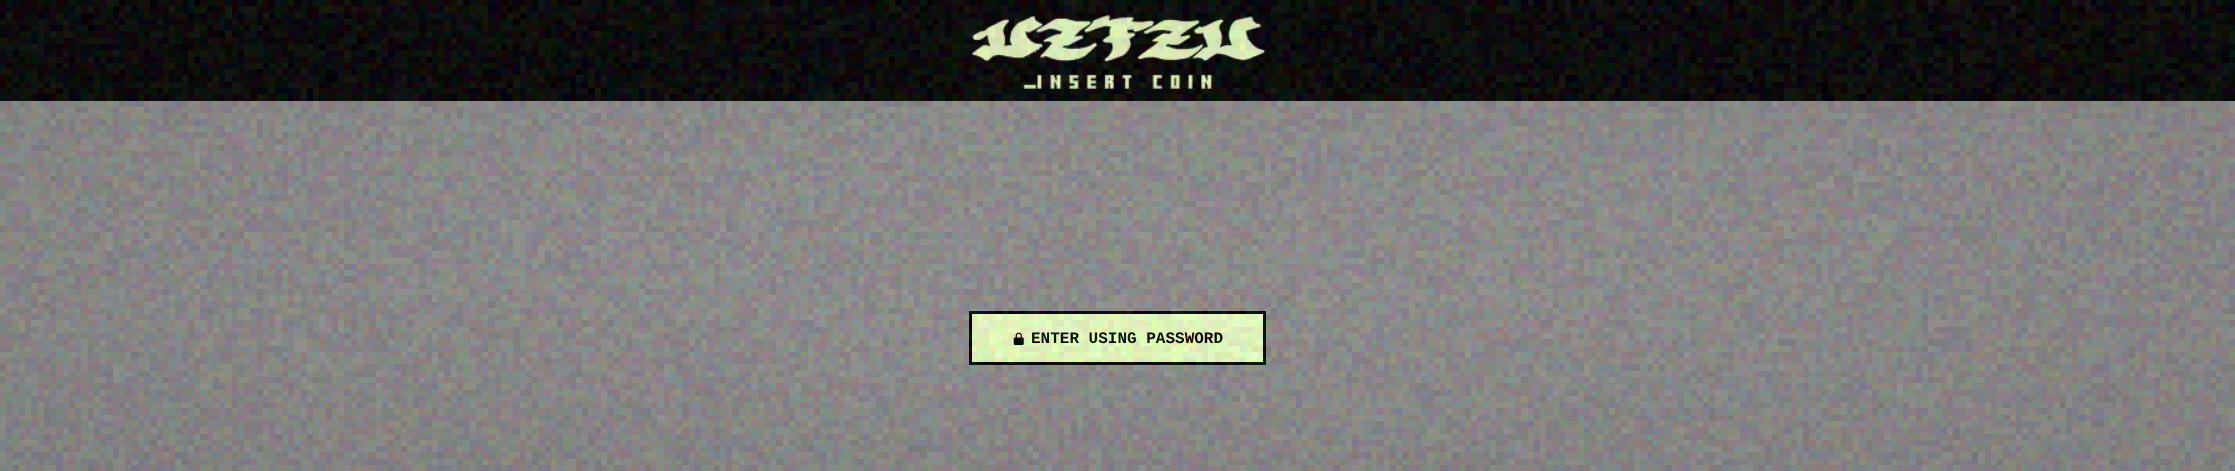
async function draw(canvas) {
  canvas.width = 2235;
  canvas.height = 471;
  const ctx = canvas.getContext('2d');
  ctx.miterLimit = 4;
  ctx.fontKerning = 'normal';
  function label(s, x, y, font, color) {
    ctx.font = font;
    ctx.fillStyle = color;
    ctx.fillText(s, x, y);
  }
  function rect(x, y, w, h, color) {
    ctx.fillStyle = color;
    ctx.fillRect(x, y, w, h);
  }
  async function image(src, x, y, w, h) {
    const img = new Image();
    img.src = src;
    await img.decode();
    ctx.drawImage(img, x, y, w, h);
  }
  let gradient;

  rect(0, 0, 2235, 471, '#000');
  await image('assets/img2.png', 971, 14, 295, 75);
  rect(0, 101, 2235, 370, '#8c8b8b');
  ctx.fillStyle = '#eaffc1';
  ctx.beginPath();
  ctx.rect(970.5, 312.5, 294, 51);
  ctx.fill();
  ctx.strokeStyle = '#000';
  ctx.lineWidth = 3;
  ctx.stroke();
  await image('assets/img3.png', 1013, 332, 11, 13);
  label('ENTER USING PASSWORD', 1031, 343, 'bold 16px Liberation Mono', '#000');
  await image('assets/img1.png', 0, 0, 2235, 471);
  gradient = ctx.createRadialGradient(1118, 1119.76, 0, 1118, 1119.76, 1580);
  gradient.addColorStop(0, '#00000000');
  gradient.addColorStop(0.3, '#00000000');
  gradient.addColorStop(1, '#00000014');
  ctx.fillStyle = gradient;
  ctx.beginPath();
  ctx.rect(0, 15, 2235, 456);
  ctx.save();
  ctx.clip();
  ctx.scale(1, 333 / 1580);
  ctx.fillRect(0, 0, 2235, 2235);
  ctx.restore();
}

draw(document.querySelector('canvas'));
